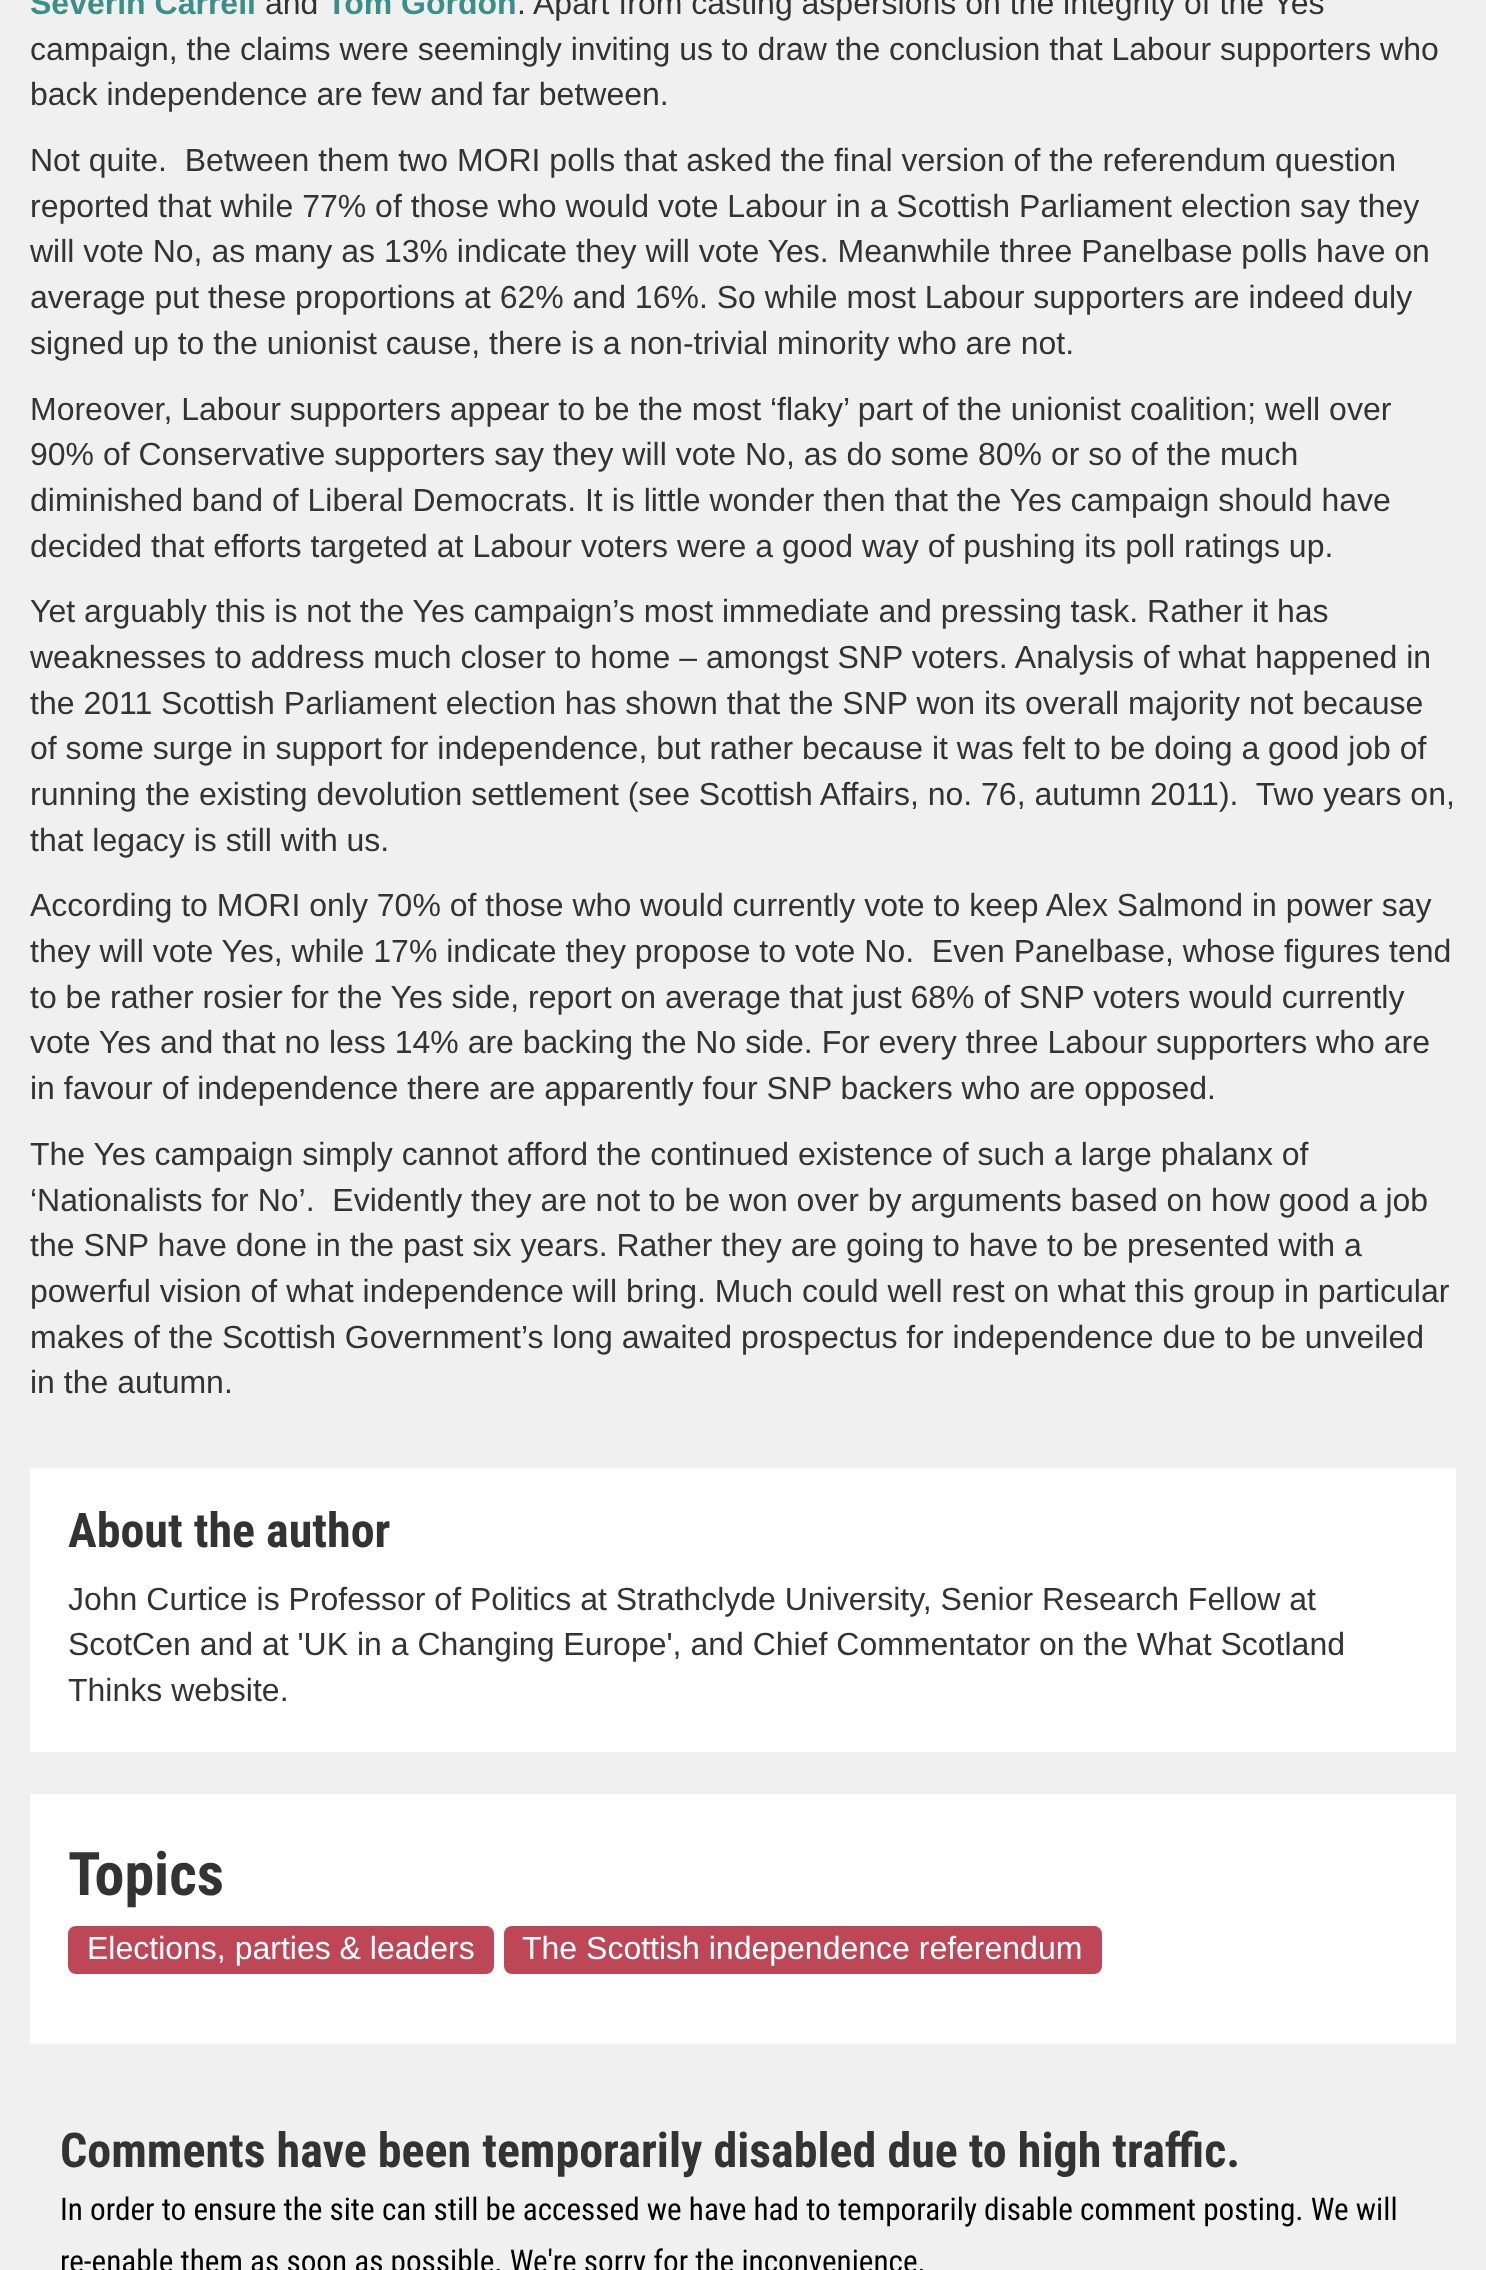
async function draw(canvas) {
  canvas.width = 1486;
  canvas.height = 2270;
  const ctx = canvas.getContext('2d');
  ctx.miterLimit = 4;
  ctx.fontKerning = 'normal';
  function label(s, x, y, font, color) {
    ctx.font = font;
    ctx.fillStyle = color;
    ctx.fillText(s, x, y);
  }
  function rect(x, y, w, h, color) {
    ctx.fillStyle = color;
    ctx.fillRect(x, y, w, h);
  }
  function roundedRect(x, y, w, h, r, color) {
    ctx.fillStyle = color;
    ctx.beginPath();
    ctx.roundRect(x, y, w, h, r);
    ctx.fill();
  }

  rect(0, 0, 1486, 2270, '#f0f0f0');
  label('Severin Carrell', 30, 14, 'bold 32px Liberation Sans', '#3c8e88');
  label('and', 265, 14, '32px Liberation Sans', '#333');
  label('Tom Gordon', 327, 14, 'bold 32px Liberation Sans', '#3c8e88');
  label('. Apart from casting aspersions on the integrity of the Yes', 517, 14, '32px Liberation Sans', '#333');
  label('campaign, the claims were seemingly inviting us to draw the conclusion that Labour supporters who', 30, 60, '32px Liberation Sans', '#333');
  label('back independence are few and far between.', 30, 105, '32px Liberation Sans', '#333');
  label('Not quite.  Between them two MORI polls that asked the final version of the referendum question', 30, 171, '32px Liberation Sans', '#333');
  label('reported that while 77% of those who would vote Labour in a Scottish Parliament election say they', 30, 217, '32px Liberation Sans', '#333');
  label('will vote No, as many as 13% indicate they will vote Yes. Meanwhile three Panelbase polls have on', 30, 262, '32px Liberation Sans', '#333');
  label('average put these proportions at 62% and 16%. So while most Labour supporters are indeed duly', 30, 308, '32px Liberation Sans', '#333');
  label('signed up to the unionist cause, there is a non-trivial minority who are not.', 30, 354, '32px Liberation Sans', '#333');
  label('Moreover, Labour supporters appear to be the most ‘flaky’ part of the unionist coalition; well over', 30, 420, '32px Liberation Sans', '#333');
  label('90% of Conservative supporters say they will vote No, as do some 80% or so of the much', 30, 465, '32px Liberation Sans', '#333');
  label('diminished band of Liberal Democrats. It is little wonder then that the Yes campaign should have', 30, 511, '32px Liberation Sans', '#333');
  label('decided that efforts targeted at Labour voters were a good way of pushing its poll ratings up.', 30, 557, '32px Liberation Sans', '#333');
  label('Yet arguably this is not the Yes campaign’s most immediate and pressing task. Rather it has', 30, 622, '32px Liberation Sans', '#333');
  label('weaknesses to address much closer to home – amongst SNP voters. Analysis of what happened in', 30, 668, '32px Liberation Sans', '#333');
  label('the 2011 Scottish Parliament election has shown that the SNP won its overall majority not because', 30, 714, '32px Liberation Sans', '#333');
  label('of some surge in support for independence, but rather because it was felt to be doing a good job of', 30, 759, '32px Liberation Sans', '#333');
  label('running the existing devolution settlement (see Scottish Affairs, no. 76, autumn 2011).  Two years on,', 30, 805, '32px Liberation Sans', '#333');
  label('that legacy is still with us.', 30, 851, '32px Liberation Sans', '#333');
  label('According to MORI only 70% of those who would currently vote to keep Alex Salmond in power say', 30, 916, '32px Liberation Sans', '#333');
  label('they will vote Yes, while 17% indicate they propose to vote No.  Even Panelbase, whose figures tend', 30, 962, '32px Liberation Sans', '#333');
  label('to be rather rosier for the Yes side, report on average that just 68% of SNP voters would currently', 30, 1008, '32px Liberation Sans', '#333');
  label('vote Yes and that no less 14% are backing the No side. For every three Labour supporters who are', 30, 1053, '32px Liberation Sans', '#333');
  label('in favour of independence there are apparently four SNP backers who are opposed.', 30, 1099, '32px Liberation Sans', '#333');
  label('The Yes campaign simply cannot afford the continued existence of such a large phalanx of', 30, 1165, '32px Liberation Sans', '#333');
  label('‘Nationalists for No’.  Evidently they are not to be won over by arguments based on how good a job', 30, 1211, '32px Liberation Sans', '#333');
  label('the SNP have done in the past six years. Rather they are going to have to be presented with a', 30, 1256, '32px Liberation Sans', '#333');
  label('powerful vision of what independence will bring. Much could well rest on what this group in particular', 30, 1302, '32px Liberation Sans', '#333');
  label('makes of the Scottish Government’s long awaited prospectus for independence due to be unveiled', 30, 1348, '32px Liberation Sans', '#333');
  label('in the autumn.', 30, 1393, '32px Liberation Sans', '#333');
  rect(30, 1468, 1426, 284, '#fff');
  label('About the author', 68, 1547, 'bold 48px Roboto Condensed', '#333');
  label('John Curtice is Professor of Politics at Strathclyde University, Senior Research Fellow at', 68, 1610, '32px Liberation Sans', '#333');
  label('ScotCen and at \'UK in a Changing Europe\', and Chief Commentator on the What Scotland', 68, 1655, '32px Liberation Sans', '#333');
  label('Thinks website.', 68, 1701, '32px Liberation Sans', '#333');
  rect(30, 1794, 1426, 250, '#fff');
  label('Topics', 68, 1895, 'bold 60px Roboto Condensed', '#333');
  roundedRect(68, 1926, 426, 48, 8, '#bd4657');
  label('Elections, parties & leaders', 87, 1959, '32px Liberation Sans', '#fff');
  roundedRect(504, 1926, 598, 48, 8, '#bd4657');
  label('The Scottish independence referendum', 522, 1959, '32px Liberation Sans', '#fff');
  label('Comments have been temporarily disabled due to high traffic.', 60, 2167, 'bold 48px Roboto Condensed', '#333');
  label('In order to ensure the site can still be accessed we have had to temporarily', 60, 2220, '31.2px Roboto Condensed', '#000');
  label('disable comment posting. We will', 984, 2220, '31.2px Roboto Condensed', '#000');
  label('re-enable them as soon as possible. We\'re sorry for the inconvenience.', 60, 2272, '31.2px Roboto Condensed', '#000');
}

draw(document.querySelector('canvas'));
